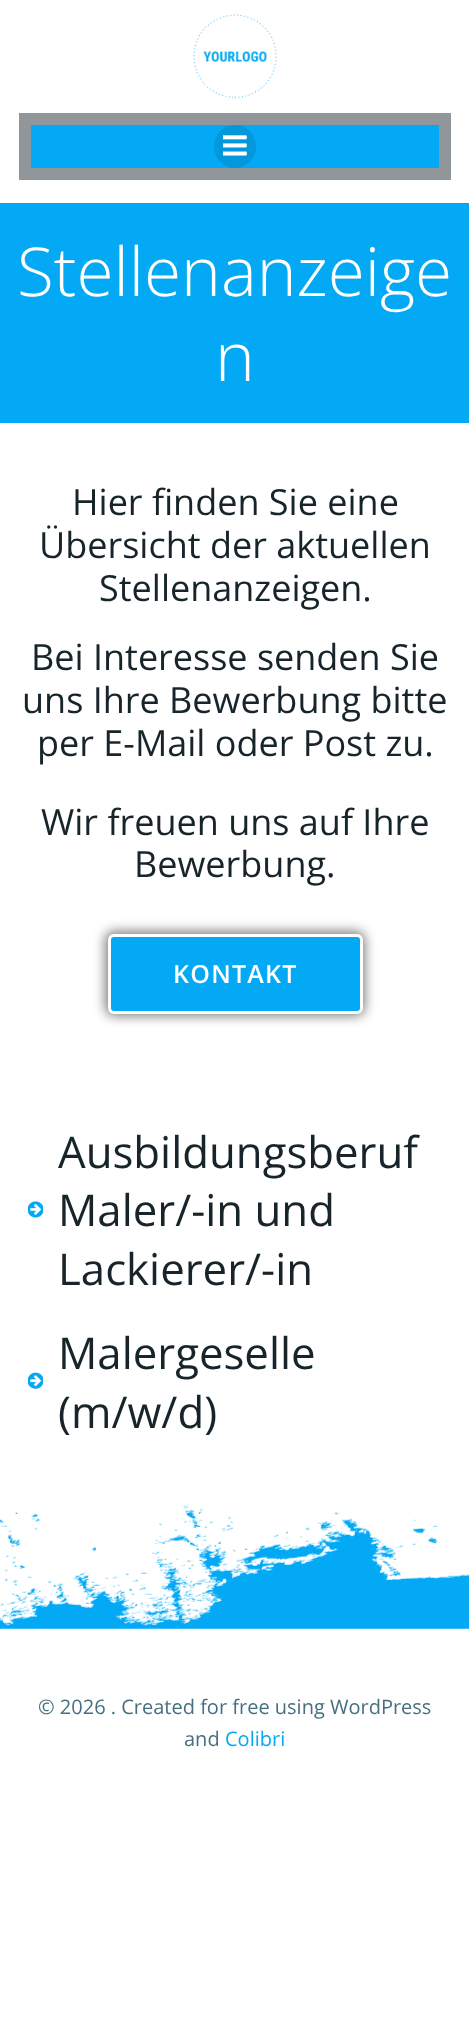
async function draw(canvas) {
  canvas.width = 469;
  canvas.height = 2031;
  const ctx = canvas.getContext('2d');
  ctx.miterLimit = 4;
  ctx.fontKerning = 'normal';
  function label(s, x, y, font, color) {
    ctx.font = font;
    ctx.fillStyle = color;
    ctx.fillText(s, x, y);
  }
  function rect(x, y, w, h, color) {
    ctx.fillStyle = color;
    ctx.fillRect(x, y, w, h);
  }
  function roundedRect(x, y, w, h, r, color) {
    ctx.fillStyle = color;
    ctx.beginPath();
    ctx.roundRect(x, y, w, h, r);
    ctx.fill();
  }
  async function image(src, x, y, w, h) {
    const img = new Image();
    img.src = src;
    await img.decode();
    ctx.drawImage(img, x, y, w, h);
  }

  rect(0, 0, 469, 2031, '#fff');
  await image('assets/img1.png', 193, 14, 84, 85);
  rect(19, 113, 432, 67, '#909699');
  rect(31, 125, 408, 43, '#03a9f4');
  roundedRect(214, 125, 42, 43, 21, '#0398dc');
  await image('assets/img2.png', 223, 135, 24, 21);
  rect(0, 203, 469, 220, '#03a9f4');
  label('Stellenanzeige', 17, 296, '300 67.5px Open Sans', '#fff');
  label('n', 215, 381, '300 67.5px Open Sans', '#fff');
  label('Hier finden Sie eine', 72, 515, '36px Open Sans', '#17252a');
  label('Übersicht der aktuellen', 39, 558, '36px Open Sans', '#17252a');
  label('Stellenanzeigen.', 99, 601, '36px Open Sans', '#17252a');
  label('Bei Interesse senden Sie', 31, 670, '36px Open Sans', '#17252a');
  label('uns Ihre Bewerbung bitte', 22, 713, '36px Open Sans', '#17252a');
  label('per E-Mail oder Post zu.', 37, 756, '36px Open Sans', '#17252a');
  label('Wir freuen uns auf Ihre', 41, 835, '36px Open Sans', '#17252a');
  label('Bewerbung.', 134, 877, '36px Open Sans', '#17252a');
  ctx.fillStyle = '#00000080';
  ctx.filter = 'blur(6px)';
  ctx.beginPath();
  ctx.roundRect(105, 931, 260, 85, 9);
  ctx.fill();
  ctx.filter = 'none';
  ctx.fillStyle = '#03a9f4';
  ctx.beginPath();
  ctx.roundRect(109.5, 935.5, 252, 77, 4.5);
  ctx.fill();
  ctx.strokeStyle = '#fff';
  ctx.lineWidth = 3;
  ctx.stroke();
  ctx.letterSpacing = '1.25px';
  label('KONTAKT', 173, 983, '600 25px Open Sans', '#fff');
  await image('assets/img3.png', 28, 1201, 15, 17);
  ctx.letterSpacing = '0px';
  label('Ausbildungsberuf', 58, 1168, '43.75px Open Sans', '#17252a');
  label('Maler/-in und', 58, 1226, '43.75px Open Sans', '#17252a');
  label('Lackierer/-in', 58, 1285, '43.75px Open Sans', '#17252a');
  await image('assets/img4.png', 28, 1372, 15, 17);
  label('Malergeselle', 58, 1369, '43.75px Open Sans', '#17252a');
  label('(m/w/d)', 58, 1428, '43.75px Open Sans', '#17252a');
  await image('assets/img5.png', 0, 1504, 469, 125);
  label('© 2026 . Created for free using WordPress', 38, 1714, '20px Open Sans', '#46707f');
  label('and', 184, 1746, '20px Open Sans', '#46707f');
  label('Colibri', 225, 1746, '20px Open Sans', '#03a9f4');
}

draw(document.querySelector('canvas'));
